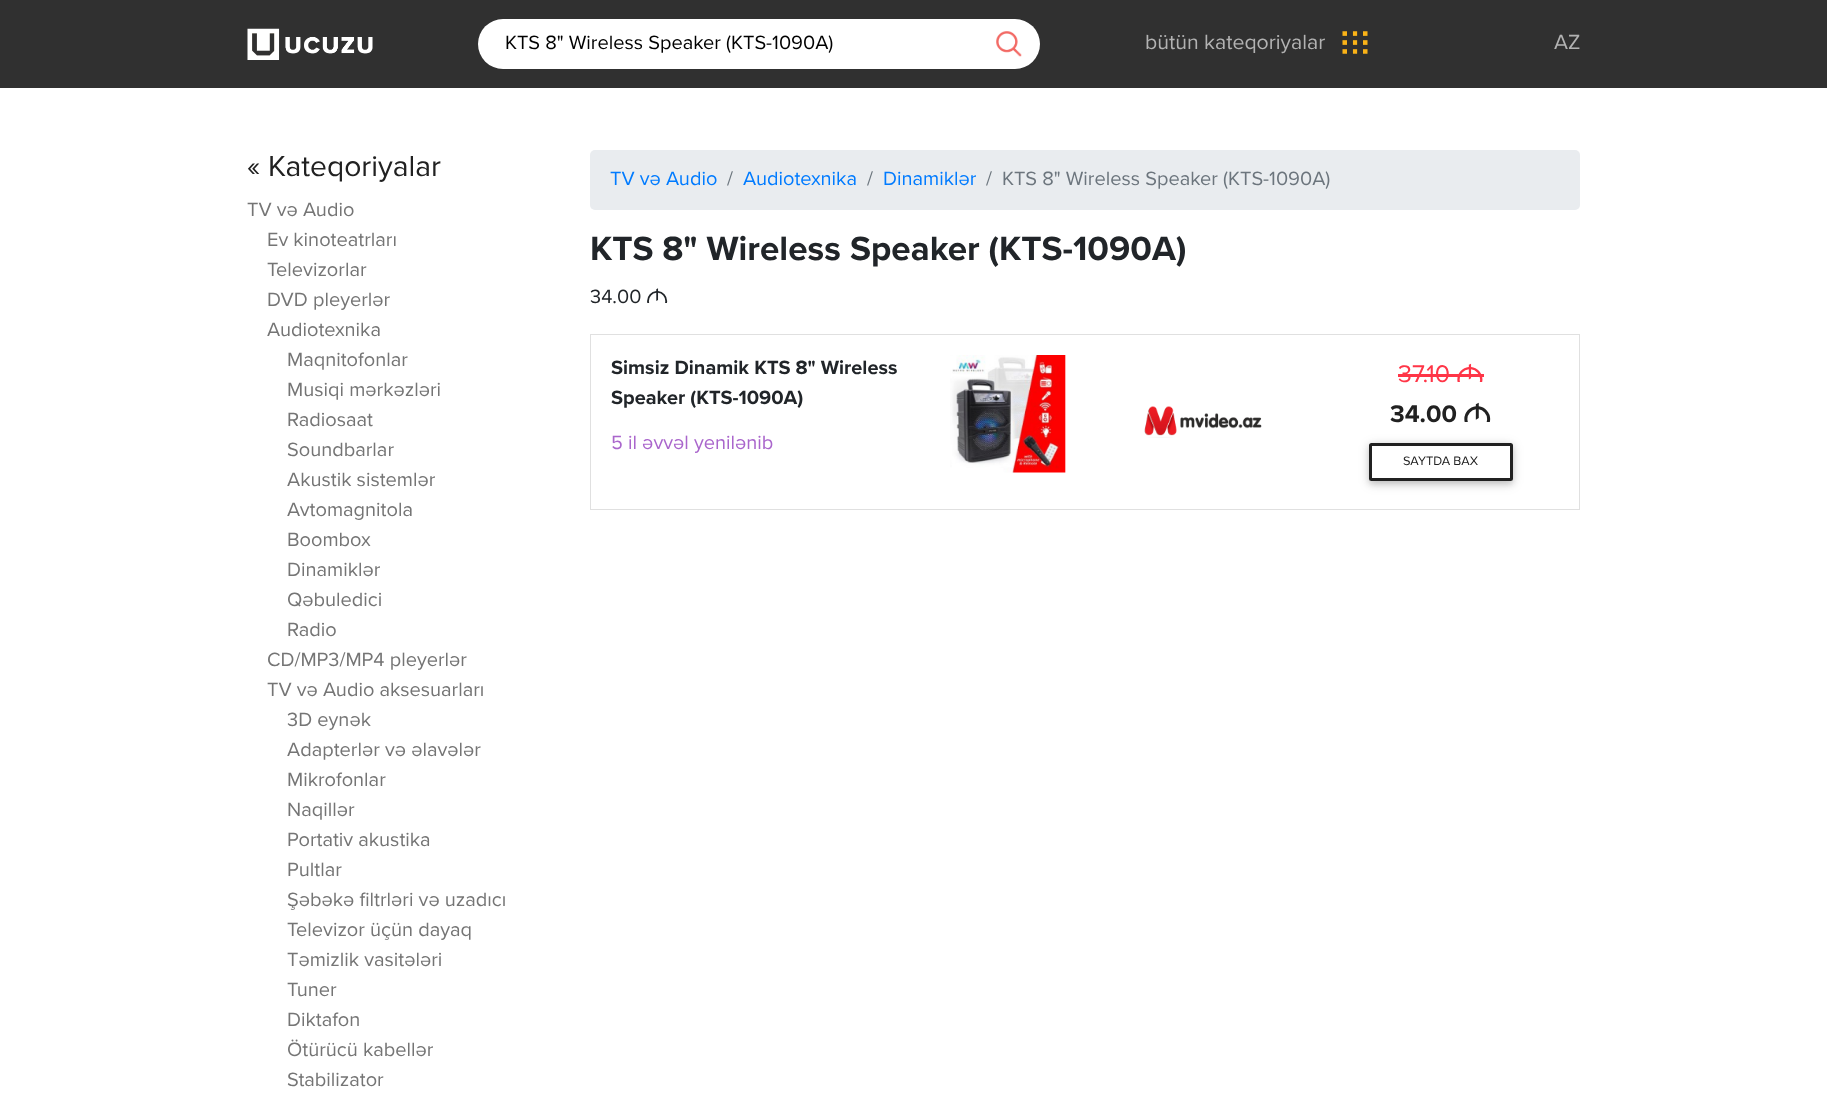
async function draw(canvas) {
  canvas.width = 1827;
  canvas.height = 1112;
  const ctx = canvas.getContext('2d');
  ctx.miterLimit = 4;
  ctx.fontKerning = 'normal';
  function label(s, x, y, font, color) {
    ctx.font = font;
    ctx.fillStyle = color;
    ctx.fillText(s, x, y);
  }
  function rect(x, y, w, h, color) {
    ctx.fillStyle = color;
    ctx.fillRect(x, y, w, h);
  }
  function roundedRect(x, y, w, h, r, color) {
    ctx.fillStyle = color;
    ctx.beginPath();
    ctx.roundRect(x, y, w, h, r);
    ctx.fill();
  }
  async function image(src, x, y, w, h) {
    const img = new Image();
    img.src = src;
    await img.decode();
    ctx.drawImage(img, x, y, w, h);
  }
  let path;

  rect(0, 0, 1827, 1112, '#fff');
  rect(0, 0, 1827, 88, '#303030');
  await image('assets/img1.png', 247, 28, 126, 32);
  roundedRect(478, 19, 562, 50, 25, '#fff');
  label('KTS 8" Wireless Speaker (KTS-1090A)', 505, 49, '20px Proxima Nova', '#000');
  await image('assets/img2.png', 996, 31, 26, 26);
  label('bütün kateqoriyalar', 1145, 49, '21.25px Proxima Nova', '#b2b2b2');
  await image('assets/img3.png', 1342, 31, 26, 23);
  label('AZ', 1554, 49, '21.25px Proxima Nova', '#b2b2b2');
  label('« Kateqoriyalar', 247, 176, '30px Proxima Nova', '#212121');
  label('TV və Audio', 247, 216, '20px Proxima Nova', '#757575');
  label('Ev kinoteatrları', 267, 246, '20px Proxima Nova', '#757575');
  label('Televizorlar', 267, 276, '20px Proxima Nova', '#757575');
  label('DVD pleyerlər', 267, 306, '20px Proxima Nova', '#757575');
  label('Audiotexnika', 267, 336, '20px Proxima Nova', '#757575');
  label('Maqnitofonlar', 287, 366, '20px Proxima Nova', '#757575');
  label('Musiqi mərkəzləri', 287, 396, '20px Proxima Nova', '#757575');
  label('Radiosaat', 287, 426, '20px Proxima Nova', '#757575');
  label('Soundbarlar', 287, 456, '20px Proxima Nova', '#757575');
  label('Akustik sistemlər', 287, 486, '20px Proxima Nova', '#757575');
  label('Avtomagnitola', 287, 516, '20px Proxima Nova', '#757575');
  label('Boombox', 287, 546, '20px Proxima Nova', '#757575');
  label('Dinamiklər', 287, 576, '20px Proxima Nova', '#757575');
  label('Qəbuledici', 287, 606, '20px Proxima Nova', '#757575');
  label('Radio', 287, 636, '20px Proxima Nova', '#757575');
  label('CD/MP3/MP4 pleyerlər', 267, 666, '20px Proxima Nova', '#757575');
  label('TV və Audio aksesuarları', 267, 696, '20px Proxima Nova', '#757575');
  label('3D eynək', 287, 726, '20px Proxima Nova', '#757575');
  label('Adapterlər və əlavələr', 287, 756, '20px Proxima Nova', '#757575');
  label('Mikrofonlar', 287, 786, '20px Proxima Nova', '#757575');
  label('Naqillər', 287, 816, '20px Proxima Nova', '#757575');
  label('Portativ akustika', 287, 846, '20px Proxima Nova', '#757575');
  label('Pultlar', 287, 876, '20px Proxima Nova', '#757575');
  label('Şəbəkə filtrləri və uzadıcı', 287, 906, '20px Proxima Nova', '#757575');
  label('Televizor üçün dayaq', 287, 936, '20px Proxima Nova', '#757575');
  label('Təmizlik vasitələri', 287, 966, '20px Proxima Nova', '#757575');
  label('Tuner', 287, 996, '20px Proxima Nova', '#757575');
  label('Diktafon', 287, 1026, '20px Proxima Nova', '#757575');
  label('Ötürücü kabellər', 287, 1056, '20px Proxima Nova', '#757575');
  label('Stabilizator', 287, 1086, '20px Proxima Nova', '#757575');
  roundedRect(590, 150, 990, 60, 5, '#e9ecef');
  label('TV və Audio', 610, 185, '20px Proxima Nova', '#007bff');
  label('/', 727, 185, '20px Proxima Nova', '#6c757d');
  label('Audiotexnika', 743, 185, '20px Proxima Nova', '#007bff');
  label('/', 867, 185, '20px Proxima Nova', '#6c757d');
  label('Dinamiklər', 883, 185, '20px Proxima Nova', '#007bff');
  label('/', 986, 185, '20px Proxima Nova', '#6c757d');
  label('KTS 8" Wireless Speaker (KTS-1090A)', 1002, 185, '20px Proxima Nova', '#6c757d');
  label('KTS 8" Wireless Speaker (KTS-1090A)', 590, 260, 'bold 35px Proxima Nova', '#212529');
  label('34.00', 590, 303, '20px Proxima Nova', '#212529');
  label('M', 646, 303, '20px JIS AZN', '#212529');
  ctx.strokeStyle = '#e0e0e0';
  ctx.strokeRect(590.5, 334.5, 989, 175);
  label('Simsiz Dinamik KTS 8" Wireless', 611, 374, 'bold 20px Proxima Nova', '#212529');
  label('Speaker (KTS-1090A)', 611, 404, 'bold 20px Proxima Nova', '#212529');
  label('5 il əvvəl yenilənib', 611, 449, '20px Proxima Nova', '#a6c');
  await image('assets/img4.png', 950, 355, 116, 118);
  await image('assets/img5.png', 1144, 406, 118, 32);
  label('37.10', 1398, 382, '25px Proxima Nova', '#ff3547');
  rect(1398, 374, 58, 3, '#ff3547');
  label('M', 1456, 382, '25px JIS AZN', '#ff3547');
  rect(1456, 374, 28, 3, '#ff3547');
  label('34.00', 1390, 422, 'bold 25px Proxima Nova', '#212121');
  label('M', 1463, 422, 'bold 25px JIS AZN', '#212121');
  ctx.save();
  path = new Path2D('M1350 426H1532V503H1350ZM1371.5 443H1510.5C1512 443 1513 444 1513 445.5V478.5C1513 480 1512 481 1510.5 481H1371.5C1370 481 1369 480 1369 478.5V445.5C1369 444 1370 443 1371.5 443Z');
  ctx.clip(path, 'evenodd');
  ctx.fillStyle = '#0000001f';
  ctx.filter = 'blur(6px)';
  ctx.beginPath();
  ctx.roundRect(1369, 445, 144, 39, 2.5);
  ctx.fill();
  ctx.filter = 'none';
  ctx.restore();
  ctx.save();
  path = new Path2D('M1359 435H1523V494H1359ZM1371.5 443H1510.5C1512 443 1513 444 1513 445.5V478.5C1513 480 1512 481 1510.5 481H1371.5C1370 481 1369 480 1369 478.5V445.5C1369 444 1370 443 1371.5 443Z');
  ctx.clip(path, 'evenodd');
  ctx.fillStyle = '#00000029';
  ctx.filter = 'blur(3px)';
  ctx.beginPath();
  ctx.roundRect(1369, 445, 144, 39, 2.5);
  ctx.fill();
  ctx.filter = 'none';
  ctx.restore();
  ctx.beginPath();
  ctx.roundRect(1370.5, 444.5, 141, 35, 1);
  ctx.strokeStyle = '#212121';
  ctx.lineWidth = 3;
  ctx.stroke();
  label('SAYTDA BAX', 1403, 465, '12.75px Proxima Nova', '#212121');
}

draw(document.querySelector('canvas'));
